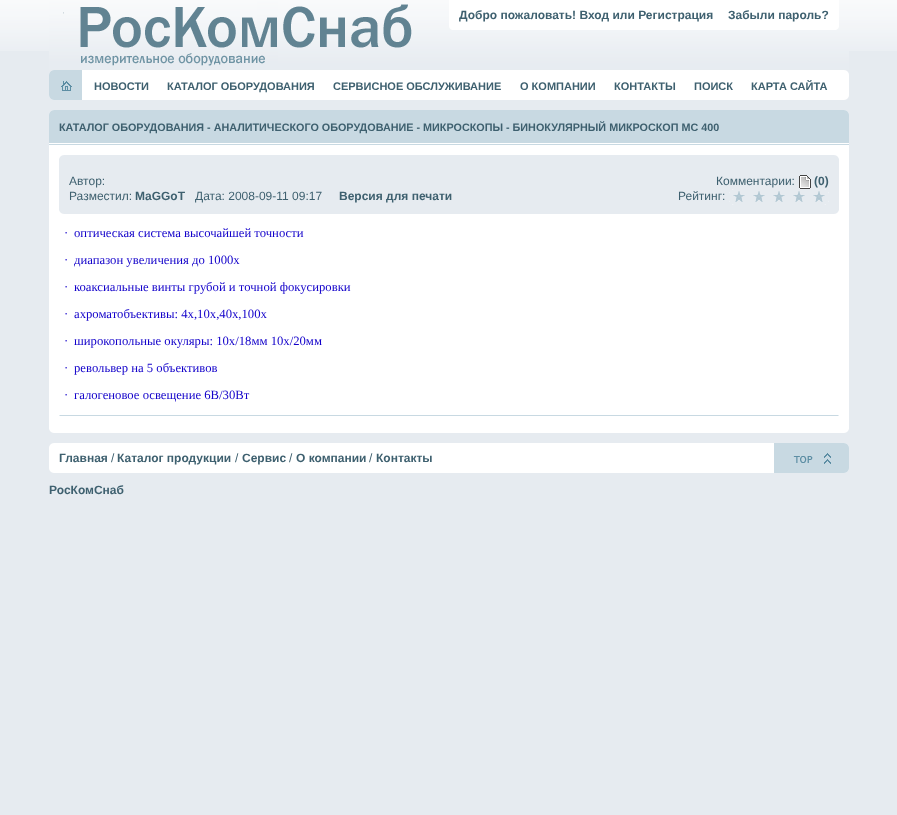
async function draw(canvas) {
  canvas.width = 897;
  canvas.height = 815;
  const ctx = canvas.getContext('2d');
  ctx.miterLimit = 4;
  ctx.fontKerning = 'normal';
  function label(s, x, y, font, color) {
    ctx.font = font;
    ctx.fillStyle = color;
    ctx.fillText(s, x, y);
  }
  function rect(x, y, w, h, color) {
    ctx.fillStyle = color;
    ctx.fillRect(x, y, w, h);
  }
  async function image(src, x, y, w, h) {
    const img = new Image();
    img.src = src;
    await img.decode();
    ctx.drawImage(img, x, y, w, h);
  }
  let path;

  rect(0, 0, 897, 815, '#e6ebf0');
  await image('assets/img1.png', 0, 0, 897, 51);
  await image('assets/img2.png', 49, 0, 800, 100);
  label('Добро пожаловать! Вход или Регистрация', 459, 19, 'bold 12px Liberation Sans', '#3e606f');
  label('Забыли пароль?', 728, 19, 'bold 12px Liberation Sans', '#3e606f');
  label('НОВОСТИ', 94, 90, 'bold 11px Liberation Sans', '#3e606f');
  label('КАТАЛОГ ОБОРУДОВАНИЯ', 167, 90, 'bold 11px Liberation Sans', '#3e606f');
  label('СЕРВИСНОЕ ОБСЛУЖИВАНИЕ', 333, 90, 'bold 11px Liberation Sans', '#3e606f');
  label('О КОМПАНИИ', 520, 90, 'bold 11px Liberation Sans', '#3e606f');
  label('КОНТАКТЫ', 614, 90, 'bold 11px Liberation Sans', '#3e606f');
  label('ПОИСК', 694, 90, 'bold 11px Liberation Sans', '#3e606f');
  label('КАРТА САЙТА', 751, 90, 'bold 11px Liberation Sans', '#3e606f');
  await image('assets/img3.png', 49, 110, 800, 35);
  label('КАТАЛОГ ОБОРУДОВАНИЯ - АНАЛИТИЧЕСКОГО ОБОРУДОВАНИЕ - МИКРОСКОПЫ - БИНОКУЛЯРНЫЙ МИКРОСКОП MC 400', 59, 131, 'bold 10.8px Liberation Sans', '#3e606f');
  rect(49, 145, 800, 284, '#fff');
  await image('assets/img4.png', 49, 429, 800, 4);
  rect(59, 159, 780, 51, '#e6ebf0');
  await image('assets/img5.png', 59, 210, 780, 4);
  await image('assets/img6.png', 59, 155, 780, 4);
  label('Автор:', 69, 185, '12px Liberation Sans', '#3e606f');
  label('Комментарии:', 716, 185, '12px Liberation Sans', '#3e606f');
  await image('assets/img7.png', 799, 175, 12, 14);
  label('(0)', 814, 185, 'bold 12px Liberation Sans', '#3e606f');
  label('Рейтинг:', 678, 200, '12px Liberation Sans', '#3e606f');
  await image('assets/img8.png', 729, 189, 100, 16);
  label('Разместил:', 69, 200, '12px Liberation Sans', '#3e606f');
  label('MaGGoT', 135, 200, 'bold 12px Liberation Sans', '#3e606f');
  label('Дата: 2008-09-11 09:17', 195, 200, '12px Liberation Sans', '#3e606f');
  label('Версия для печати', 339, 200, 'bold 12px Liberation Sans', '#3e606f');
  label('·', 64, 237, '12.7px Liberation Serif', '#1200ca');
  label('оптическая система высочайшей точности', 74, 237, '12.7px Liberation Serif', '#1200ca');
  label('·', 64, 264, '12.7px Liberation Serif', '#1200ca');
  label('диапазон увеличения до 1000x', 74, 264, '12.7px Liberation Serif', '#1200ca');
  label('·', 64, 291, '12.7px Liberation Serif', '#1200ca');
  label('коаксиальные винты грубой и точной фокусировки', 74, 291, '12.7px Liberation Serif', '#1200ca');
  label('·', 64, 318, '12.7px Liberation Serif', '#1200ca');
  label('ахроматобъективы: 4x,10x,40x,100x', 74, 318, '12.7px Liberation Serif', '#1200ca');
  label('·', 64, 345, '12.7px Liberation Serif', '#1200ca');
  label('широкопольные окуляры: 10х/18мм 10х/20мм', 74, 345, '12.7px Liberation Serif', '#1200ca');
  label('·', 64, 372, '12.7px Liberation Serif', '#1200ca');
  label('револьвер на 5 объективов', 74, 372, '12.7px Liberation Serif', '#1200ca');
  label('·', 64, 399, '12.7px Liberation Serif', '#1200ca');
  label('галогеновое освещение 6B/30Вт', 74, 399, '12.7px Liberation Serif', '#1200ca');
  ctx.fillStyle = '#c8d9e2';
  path = new Path2D('M59 415H839L838 416H60Z');
  ctx.fill(path);
  await image('assets/img9.png', 49, 443, 800, 30);
  label('Главная', 59, 462, 'bold 12px Liberation Sans', '#3e606f');
  label('/', 111, 462, '12px Liberation Sans', '#3e606f');
  label('Каталог продукции', 117, 462, 'bold 12px Liberation Sans', '#3e606f');
  label('/', 235, 462, '12px Liberation Sans', '#3e606f');
  label('Сервис', 242, 462, 'bold 12px Liberation Sans', '#3e606f');
  label('/', 289, 462, '12px Liberation Sans', '#3e606f');
  label('О компании', 296, 462, 'bold 12px Liberation Sans', '#3e606f');
  label('/', 369, 462, '12px Liberation Sans', '#3e606f');
  label('Контакты', 376, 462, 'bold 12px Liberation Sans', '#3e606f');
  label('РосКомСнаб', 49, 494, 'bold 12px Liberation Sans', '#3e606f');
}

draw(document.querySelector('canvas'));
